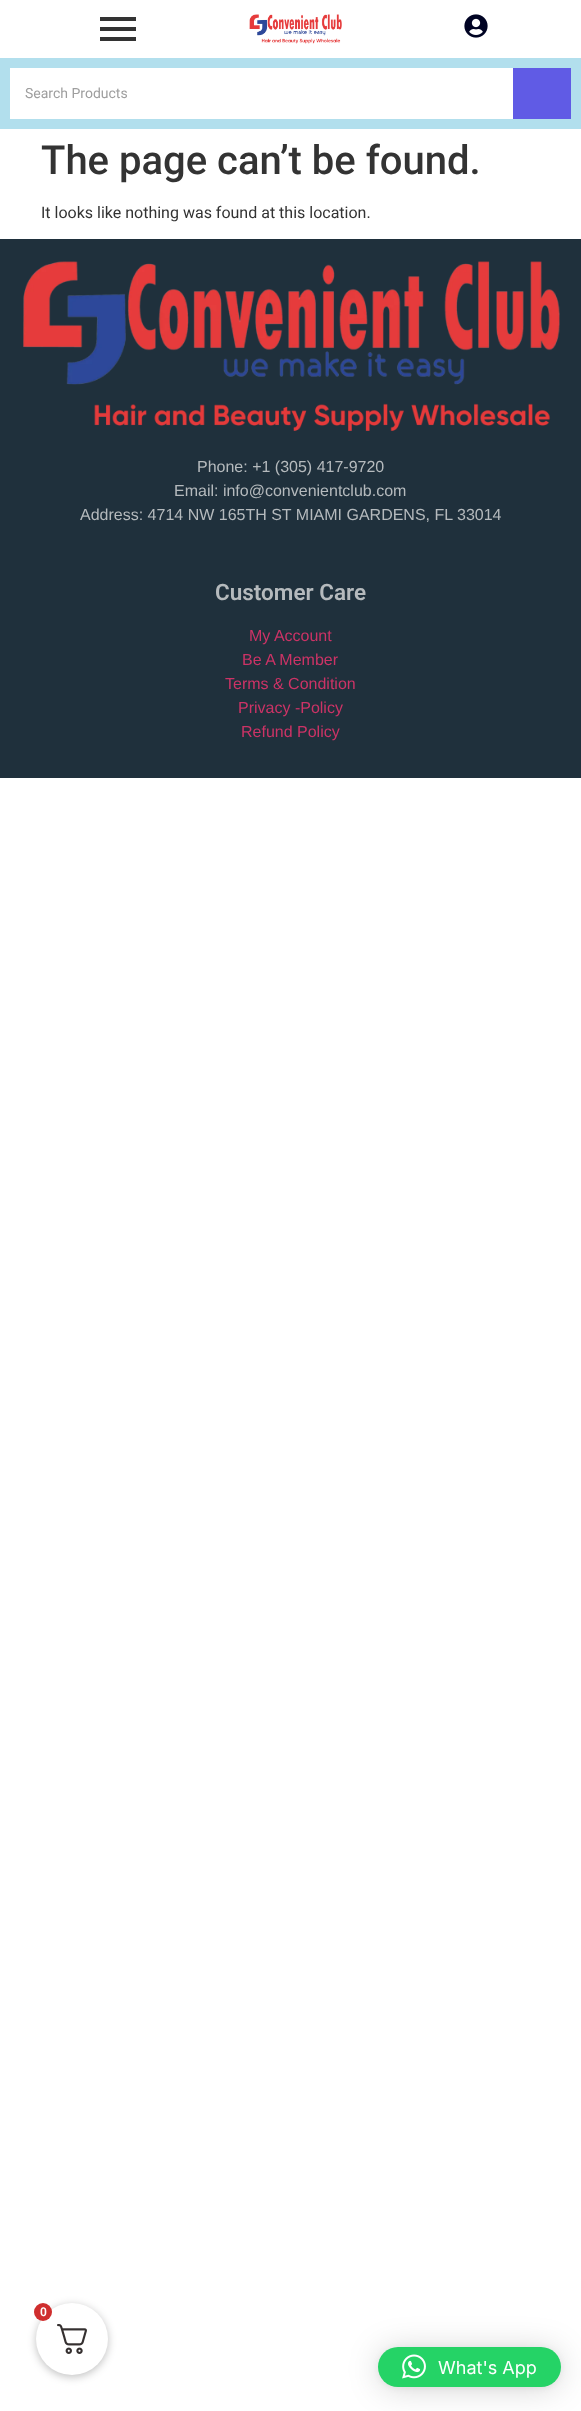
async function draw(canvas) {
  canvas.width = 581;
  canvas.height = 2411;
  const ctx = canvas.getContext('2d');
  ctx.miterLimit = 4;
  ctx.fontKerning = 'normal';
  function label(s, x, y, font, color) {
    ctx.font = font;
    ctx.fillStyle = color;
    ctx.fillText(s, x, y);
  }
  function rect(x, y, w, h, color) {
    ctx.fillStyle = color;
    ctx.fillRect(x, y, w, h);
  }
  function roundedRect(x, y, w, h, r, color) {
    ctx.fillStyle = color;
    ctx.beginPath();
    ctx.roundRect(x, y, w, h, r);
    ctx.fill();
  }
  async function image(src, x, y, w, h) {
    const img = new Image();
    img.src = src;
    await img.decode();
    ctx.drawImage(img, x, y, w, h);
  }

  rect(0, 0, 581, 2411, '#fff');
  rect(100, 17, 36, 4, '#333');
  rect(100, 27, 36, 4, '#333');
  rect(100, 37, 36, 4, '#333');
  await image('assets/img1.png', 249, 14, 93, 30);
  await image('assets/img2.png', 464, 14, 24, 24);
  rect(0, 58, 581, 71, '#b2dfed');
  rect(10, 68, 503, 51, '#fff');
  label('Search Products', 25, 98, '14px Roboto', '#9e9e9e');
  rect(513, 68, 58, 51, '#605be5');
  label('The page can’t be found.', 41, 174, '500 40px Roboto', '#333');
  label('It looks like nothing was found at this location.', 41, 218, '16px Roboto', '#333');
  rect(0, 239, 581, 539, '#1f303c');
  await image('assets/img3.png', 23, 261, 537, 170);
  label('Phone: +1 (305) 417-9720', 197, 472, '16px Liberation Sans', '#b5babd');
  label('Email: info@convenientclub.com', 174, 496, '16px Liberation Sans', '#b5babd');
  label('Address: 4714 NW 165TH ST MIAMI GARDENS, FL 33014', 80, 520, '16px Liberation Sans', '#b5babd');
  label('Customer Care', 215, 600, '600 22.5px Roboto', '#b5babd');
  label('My Account', 249, 641, '16px Liberation Sans', '#c36');
  label('Be A Member', 242, 665, '16px Liberation Sans', '#c36');
  label('Terms & Condition', 225, 689, '16px Liberation Sans', '#c36');
  label('Privacy -Policy', 238, 713, '16px Liberation Sans', '#c36');
  label('Refund Policy', 241, 737, '16px Liberation Sans', '#c36');
  ctx.fillStyle = '#00000040';
  ctx.filter = 'blur(4px)';
  ctx.beginPath();
  ctx.roundRect(36, 2305, 72, 72, 36);
  ctx.fill();
  ctx.filter = 'none';
  ctx.fillStyle = '#fff';
  ctx.beginPath();
  ctx.arc(72, 2339, 36, 0, 2 * Math.PI);
  ctx.fill();
  await image('assets/img4.png', 57, 2324, 30, 30);
  ctx.fillStyle = '#cf2e2e';
  ctx.beginPath();
  ctx.arc(43, 2312, 9, 0, 2 * Math.PI);
  ctx.fill();
  label('0', 40, 2316, '600 12px Roboto', '#fff');
  ctx.fillStyle = '#00000029';
  ctx.filter = 'blur(16px)';
  ctx.beginPath();
  ctx.roundRect(378, 2349, 183, 40, 20);
  ctx.fill();
  ctx.filter = 'none';
  ctx.fillStyle = '#0000000f';
  ctx.filter = 'blur(3px)';
  ctx.beginPath();
  ctx.roundRect(378, 2348, 183, 40, 20);
  ctx.fill();
  ctx.filter = 'none';
  roundedRect(378, 2347, 183, 40, 20, '#25d366');
  await image('assets/img5.png', 402, 2354, 24, 25);
  label('What\'s App', 438, 2374, '18px Inter', '#fff');
}

draw(document.querySelector('canvas'));
